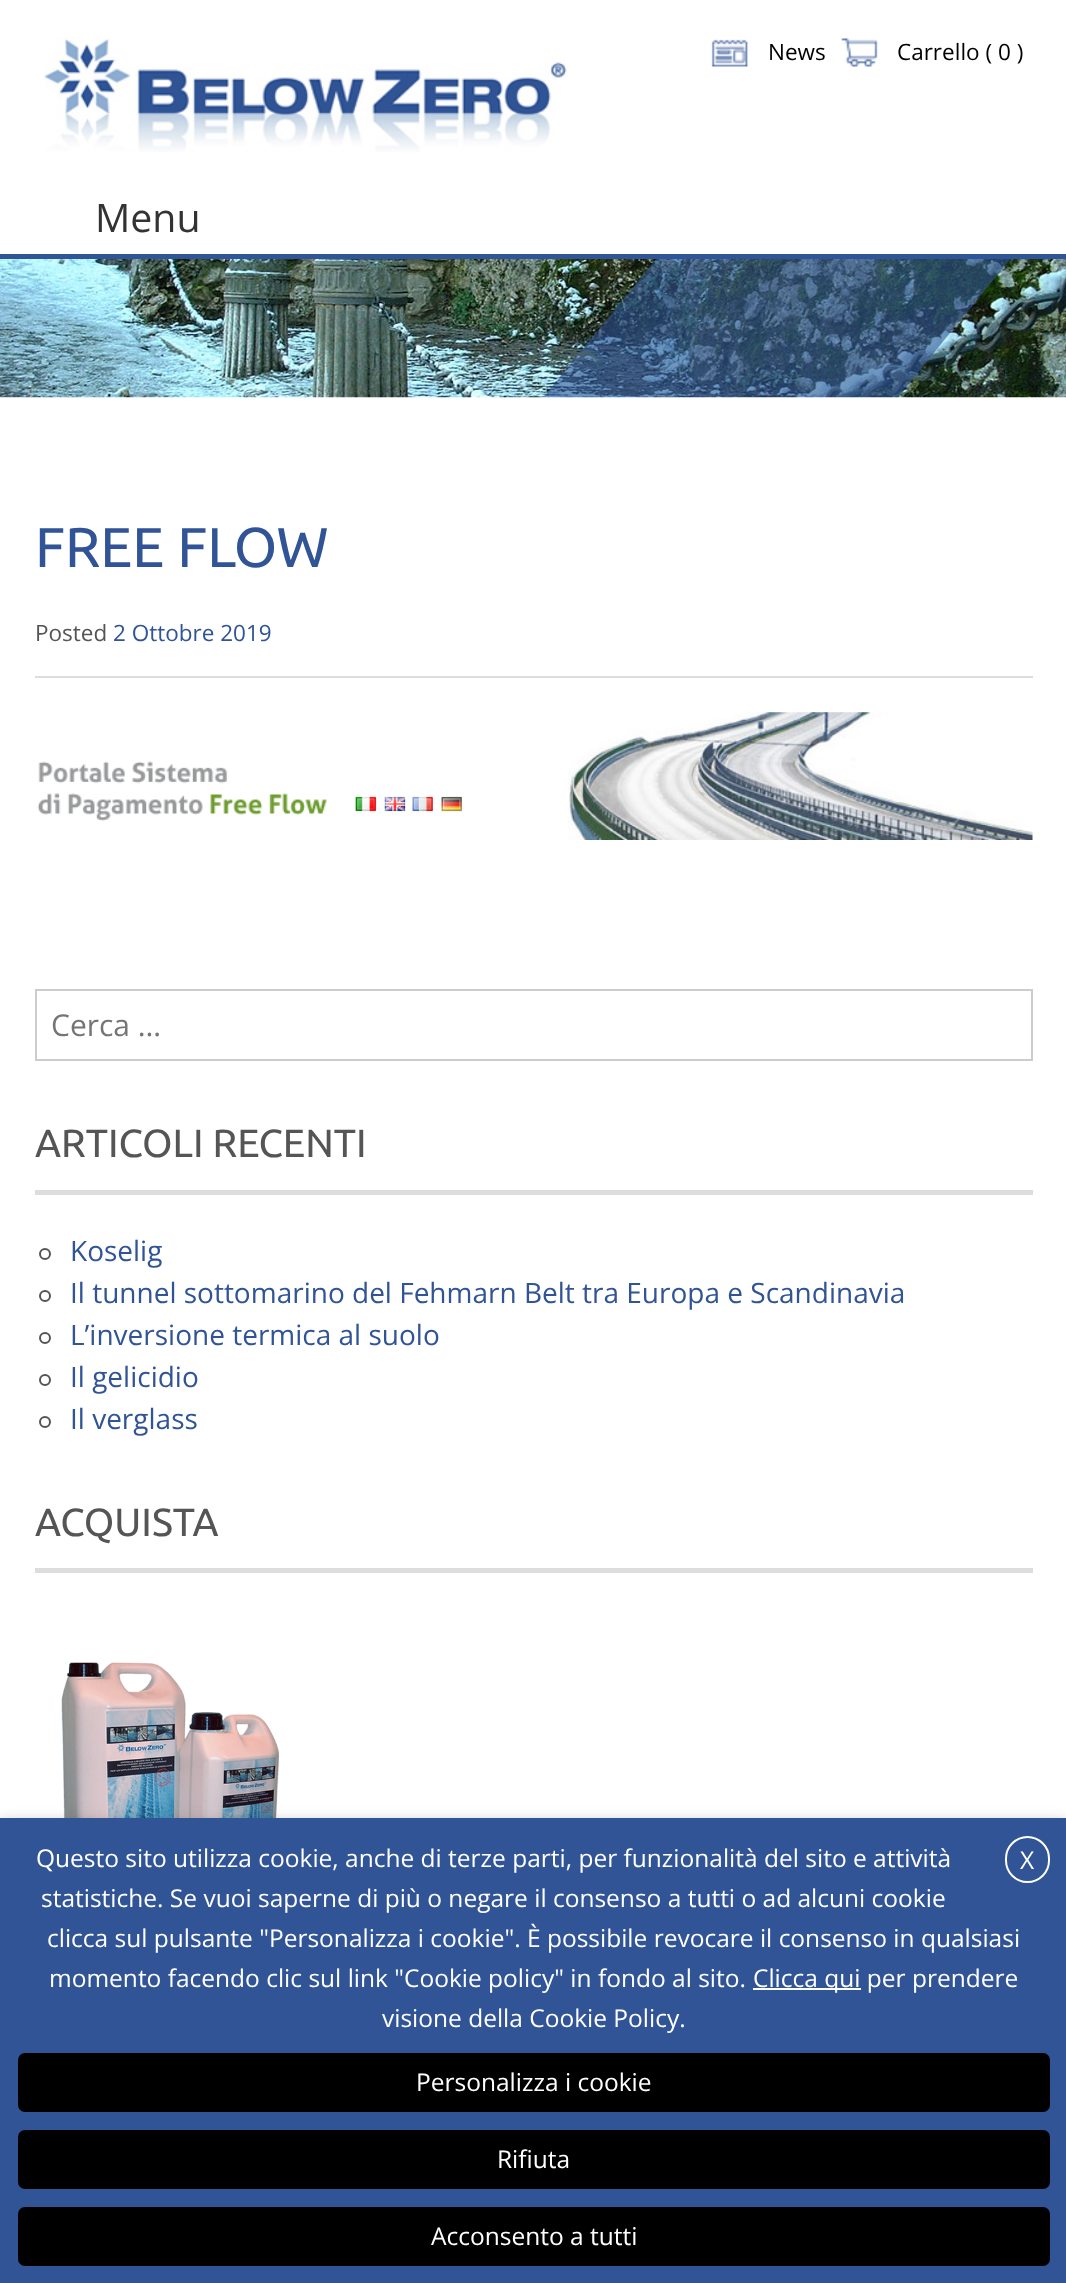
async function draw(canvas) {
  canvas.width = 1066;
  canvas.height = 2283;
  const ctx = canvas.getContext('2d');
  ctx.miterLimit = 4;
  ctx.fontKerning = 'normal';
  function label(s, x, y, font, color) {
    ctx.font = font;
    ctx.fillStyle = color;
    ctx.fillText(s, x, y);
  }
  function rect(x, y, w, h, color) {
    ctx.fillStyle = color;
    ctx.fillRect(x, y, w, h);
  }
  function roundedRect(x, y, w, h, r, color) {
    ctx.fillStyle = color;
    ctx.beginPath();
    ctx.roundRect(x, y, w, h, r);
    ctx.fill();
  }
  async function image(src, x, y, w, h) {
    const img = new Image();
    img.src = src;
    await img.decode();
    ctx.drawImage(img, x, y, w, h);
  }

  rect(0, 0, 1066, 2283, '#fff');
  await image('assets/img1.png', 44, 36, 523, 116);
  await image('assets/img2.png', 711, 39, 37, 28);
  label('News', 768, 60, '22.5px Open Sans', '#000');
  await image('assets/img3.png', 841, 38, 37, 29);
  label('Carrello ( 0 )', 897, 60, '22.5px Open Sans', '#000');
  label('Menu', 95, 232, '39.25px Open Sans', '#333');
  rect(0, 254, 1066, 5, '#305495');
  await image('assets/img4.png', 0, 259, 1066, 139);
  rect(35, 676, 998, 2, '#ddd');
  label('FREE FLOW', 35, 567, '56px Ubuntu', '#305495');
  label('Posted', 35, 641, '22.5px Open Sans', '#555');
  label('2 Ottobre 2019', 113, 641, '22.5px Open Sans', '#305495');
  await image('assets/img5.png', 37, 712, 996, 128);
  ctx.strokeStyle = '#ccc';
  ctx.lineWidth = 2;
  ctx.strokeRect(36, 990, 996, 70);
  label('Cerca …', 51, 1036, '30px Open Sans', '#757575');
  rect(35, 1190, 998, 5, '#ddd');
  label('ARTICOLI RECENTI', 35, 1157, '39.25px Ubuntu', '#555');
  ctx.beginPath();
  ctx.arc(45, 1254, 5, 0, 2 * Math.PI);
  ctx.strokeStyle = '#555';
  ctx.stroke();
  label('Koselig', 70, 1261, '28px Open Sans', '#305495');
  ctx.beginPath();
  ctx.arc(45, 1296, 5, 0, 2 * Math.PI);
  ctx.stroke();
  label('Il tunnel sottomarino del Fehmarn Belt tra Europa e Scandinavia', 70, 1303, '28px Open Sans', '#305495');
  ctx.beginPath();
  ctx.arc(45, 1338, 5, 0, 2 * Math.PI);
  ctx.stroke();
  label('L’inversione termica al suolo', 70, 1345, '28px Open Sans', '#305495');
  ctx.beginPath();
  ctx.arc(45, 1380, 5, 0, 2 * Math.PI);
  ctx.stroke();
  label('Il gelicidio', 70, 1387, '28px Open Sans', '#305495');
  ctx.beginPath();
  ctx.arc(45, 1422, 5, 0, 2 * Math.PI);
  ctx.stroke();
  label('Il verglass', 70, 1429, '28px Open Sans', '#305495');
  rect(35, 1568, 998, 5, '#ddd');
  label('ACQUISTA', 35, 1536, '39.25px Ubuntu', '#555');
  await image('assets/img6.png', 61, 1662, 219, 156);
  ctx.fillStyle = '#00000080';
  ctx.filter = 'blur(9px)';
  ctx.beginPath();
  ctx.rect(0, 1827, 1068, 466);
  ctx.fill();
  ctx.filter = 'none';
  rect(0, 1818, 1066, 465, '#305495');
  label('Questo sito utilizza cookie, anche di terze parti, per funzionalità del sito e attività', 36, 1867, '24.5px Open Sans', '#fff');
  label('statistiche. Se vuoi saperne di più o negare il consenso a tutti o ad alcuni cookie', 41, 1907, '24.5px Open Sans', '#fff');
  label('clicca sul pulsante "Personalizza i cookie". È possibile revocare il consenso in qualsiasi', 47, 1947, '24.5px Open Sans', '#fff');
  label('momento facendo clic sul link "Cookie policy" in fondo al sito.', 49, 1987, '24.5px Open Sans', '#fff');
  rect(753, 1988, 108, 2, '#fff');
  label('Clicca qui per prendere', 753, 1987, '24.5px Open Sans', '#fff');
  label('visione della Cookie Policy.', 382, 2027, '24.5px Open Sans', '#fff');
  roundedRect(18, 2053, 1032, 59, 7, '#000');
  label('Personalizza i cookie', 416, 2091, '24.5px Open Sans', '#fff');
  roundedRect(18, 2130, 1032, 59, 7, '#000');
  label('Rifiuta', 497, 2168, '24.5px Open Sans', '#fff');
  roundedRect(18, 2207, 1032, 59, 7, '#000');
  label('Acconsento a tutti', 431, 2245, '24.5px Open Sans', '#fff');
  ctx.beginPath();
  ctx.roundRect(1006, 1837, 43, 45, 21.5);
  ctx.strokeStyle = '#fff';
  ctx.stroke();
  label('X', 1020, 1869, '24.5px Open Sans', '#fff');
}

draw(document.querySelector('canvas'));
